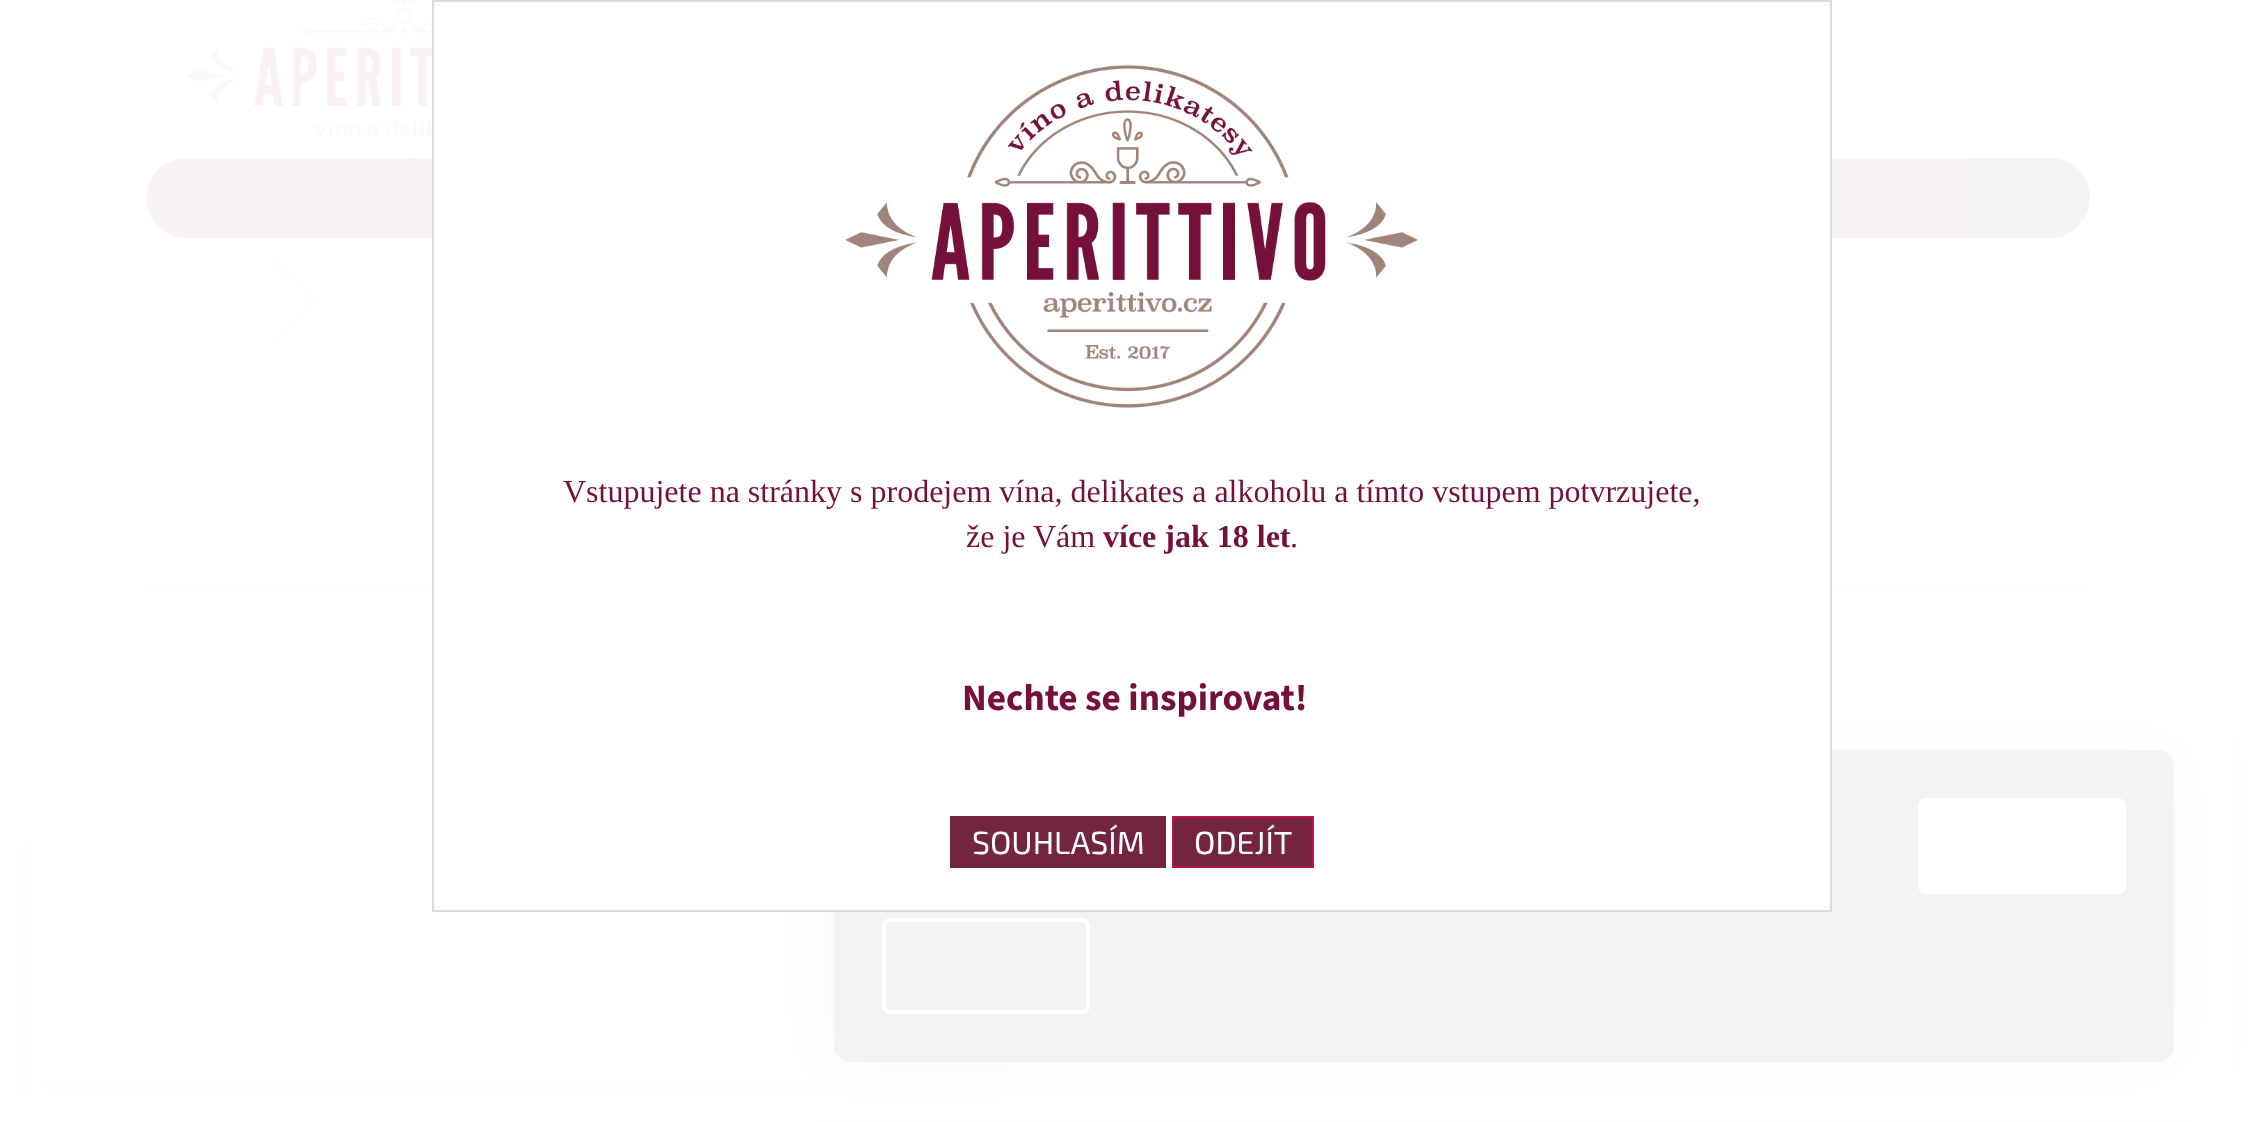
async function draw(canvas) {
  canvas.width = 2263;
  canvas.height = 1122;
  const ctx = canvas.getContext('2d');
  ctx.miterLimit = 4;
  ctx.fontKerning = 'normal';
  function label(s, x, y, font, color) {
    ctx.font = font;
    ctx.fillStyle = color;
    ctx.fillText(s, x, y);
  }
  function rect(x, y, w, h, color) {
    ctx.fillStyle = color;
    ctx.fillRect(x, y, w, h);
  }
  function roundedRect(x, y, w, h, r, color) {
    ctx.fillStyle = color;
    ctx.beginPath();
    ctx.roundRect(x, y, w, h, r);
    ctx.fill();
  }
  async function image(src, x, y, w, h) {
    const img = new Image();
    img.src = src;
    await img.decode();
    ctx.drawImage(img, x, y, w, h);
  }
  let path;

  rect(0, 0, 2263, 1122, '#fff');
  await image('assets/img1.png', 186, 0, 246, 137);
  roundedRect(146, 158, 1944, 80, 40, '#72253d');
  rect(412, 158, 2, 80, '#591d30');
  ctx.beginPath();
  ctx.roundRect(1970, 158, 120, 80, [0, 40, 40, 0]);
  ctx.fill();
  ctx.fillStyle = '#dadada';
  path = new Path2D('M273 261L275 260L316 302L315 303Z');
  ctx.fill(path);
  path = new Path2D('M315 299L316 301L275 343L273 341Z');
  ctx.fill(path);
  rect(146, 590, 1944, 2, '#dadada');
  ctx.save();
  path = new Path2D('M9 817H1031V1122H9ZM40 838H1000V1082H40Z');
  ctx.clip(path, 'evenodd');
  ctx.fillStyle = '#00000024';
  ctx.filter = 'blur(10px)';
  ctx.beginPath();
  ctx.rect(40, 848, 960, 244);
  ctx.fill();
  ctx.filter = 'none';
  ctx.restore();
  rect(40, 838, 960, 244, '#fdf3dae6');
  ctx.fillStyle = '#1b193980';
  ctx.filter = 'blur(30px)';
  ctx.beginPath();
  ctx.roundRect(834, 750, 1340, 312, 16);
  ctx.fill();
  ctx.filter = 'none';
  roundedRect(834, 750, 1340, 312, 16, '#1a1937');
  roundedRect(1918, 798, 208, 96, 8, '#f8fafb');
  ctx.beginPath();
  ctx.roundRect(884, 920, 204, 92, 6);
  ctx.strokeStyle = '#f8fafb';
  ctx.lineWidth = 4;
  ctx.stroke();
  rect(26, 0, 2207, 1121, '#fffffff2');
  rect(434, 158, 1396, 752, '#fff');
  ctx.strokeStyle = '#dadada';
  ctx.lineWidth = 2;
  ctx.strokeRect(433, 1, 1398, 910);
  await image('assets/img2.png', 845, 65, 573, 343);
  label('Vstupujete na stránky s prodejem vína, delikates a alkoholu a tímto vstupem potvrzujete,', 563, 502, '32px Liberation Serif', '#741039');
  label('že je Vám', 966, 547, '32px Liberation Serif', '#741039');
  label('více jak 18 let', 1103, 547, 'bold 32px Liberation Serif', '#741039');
  label('.', 1290, 547, '32px Liberation Serif', '#741039');
  label('Nechte se inspirovat!', 962, 710, 'bold 37.25px "Source Sans 3"', '#741039');
  rect(950, 816, 216, 52, '#72253d');
  label('SOUHLASÍM', 972, 854, '32px "Exo 2"', '#fff');
  ctx.fillStyle = '#72253d';
  ctx.beginPath();
  ctx.rect(1173, 817, 140, 50);
  ctx.fill();
  ctx.strokeStyle = '#b8144c';
  ctx.stroke();
  label('ODEJÍT', 1194, 854, '32px "Exo 2"', '#fff');
}

draw(document.querySelector('canvas'));
